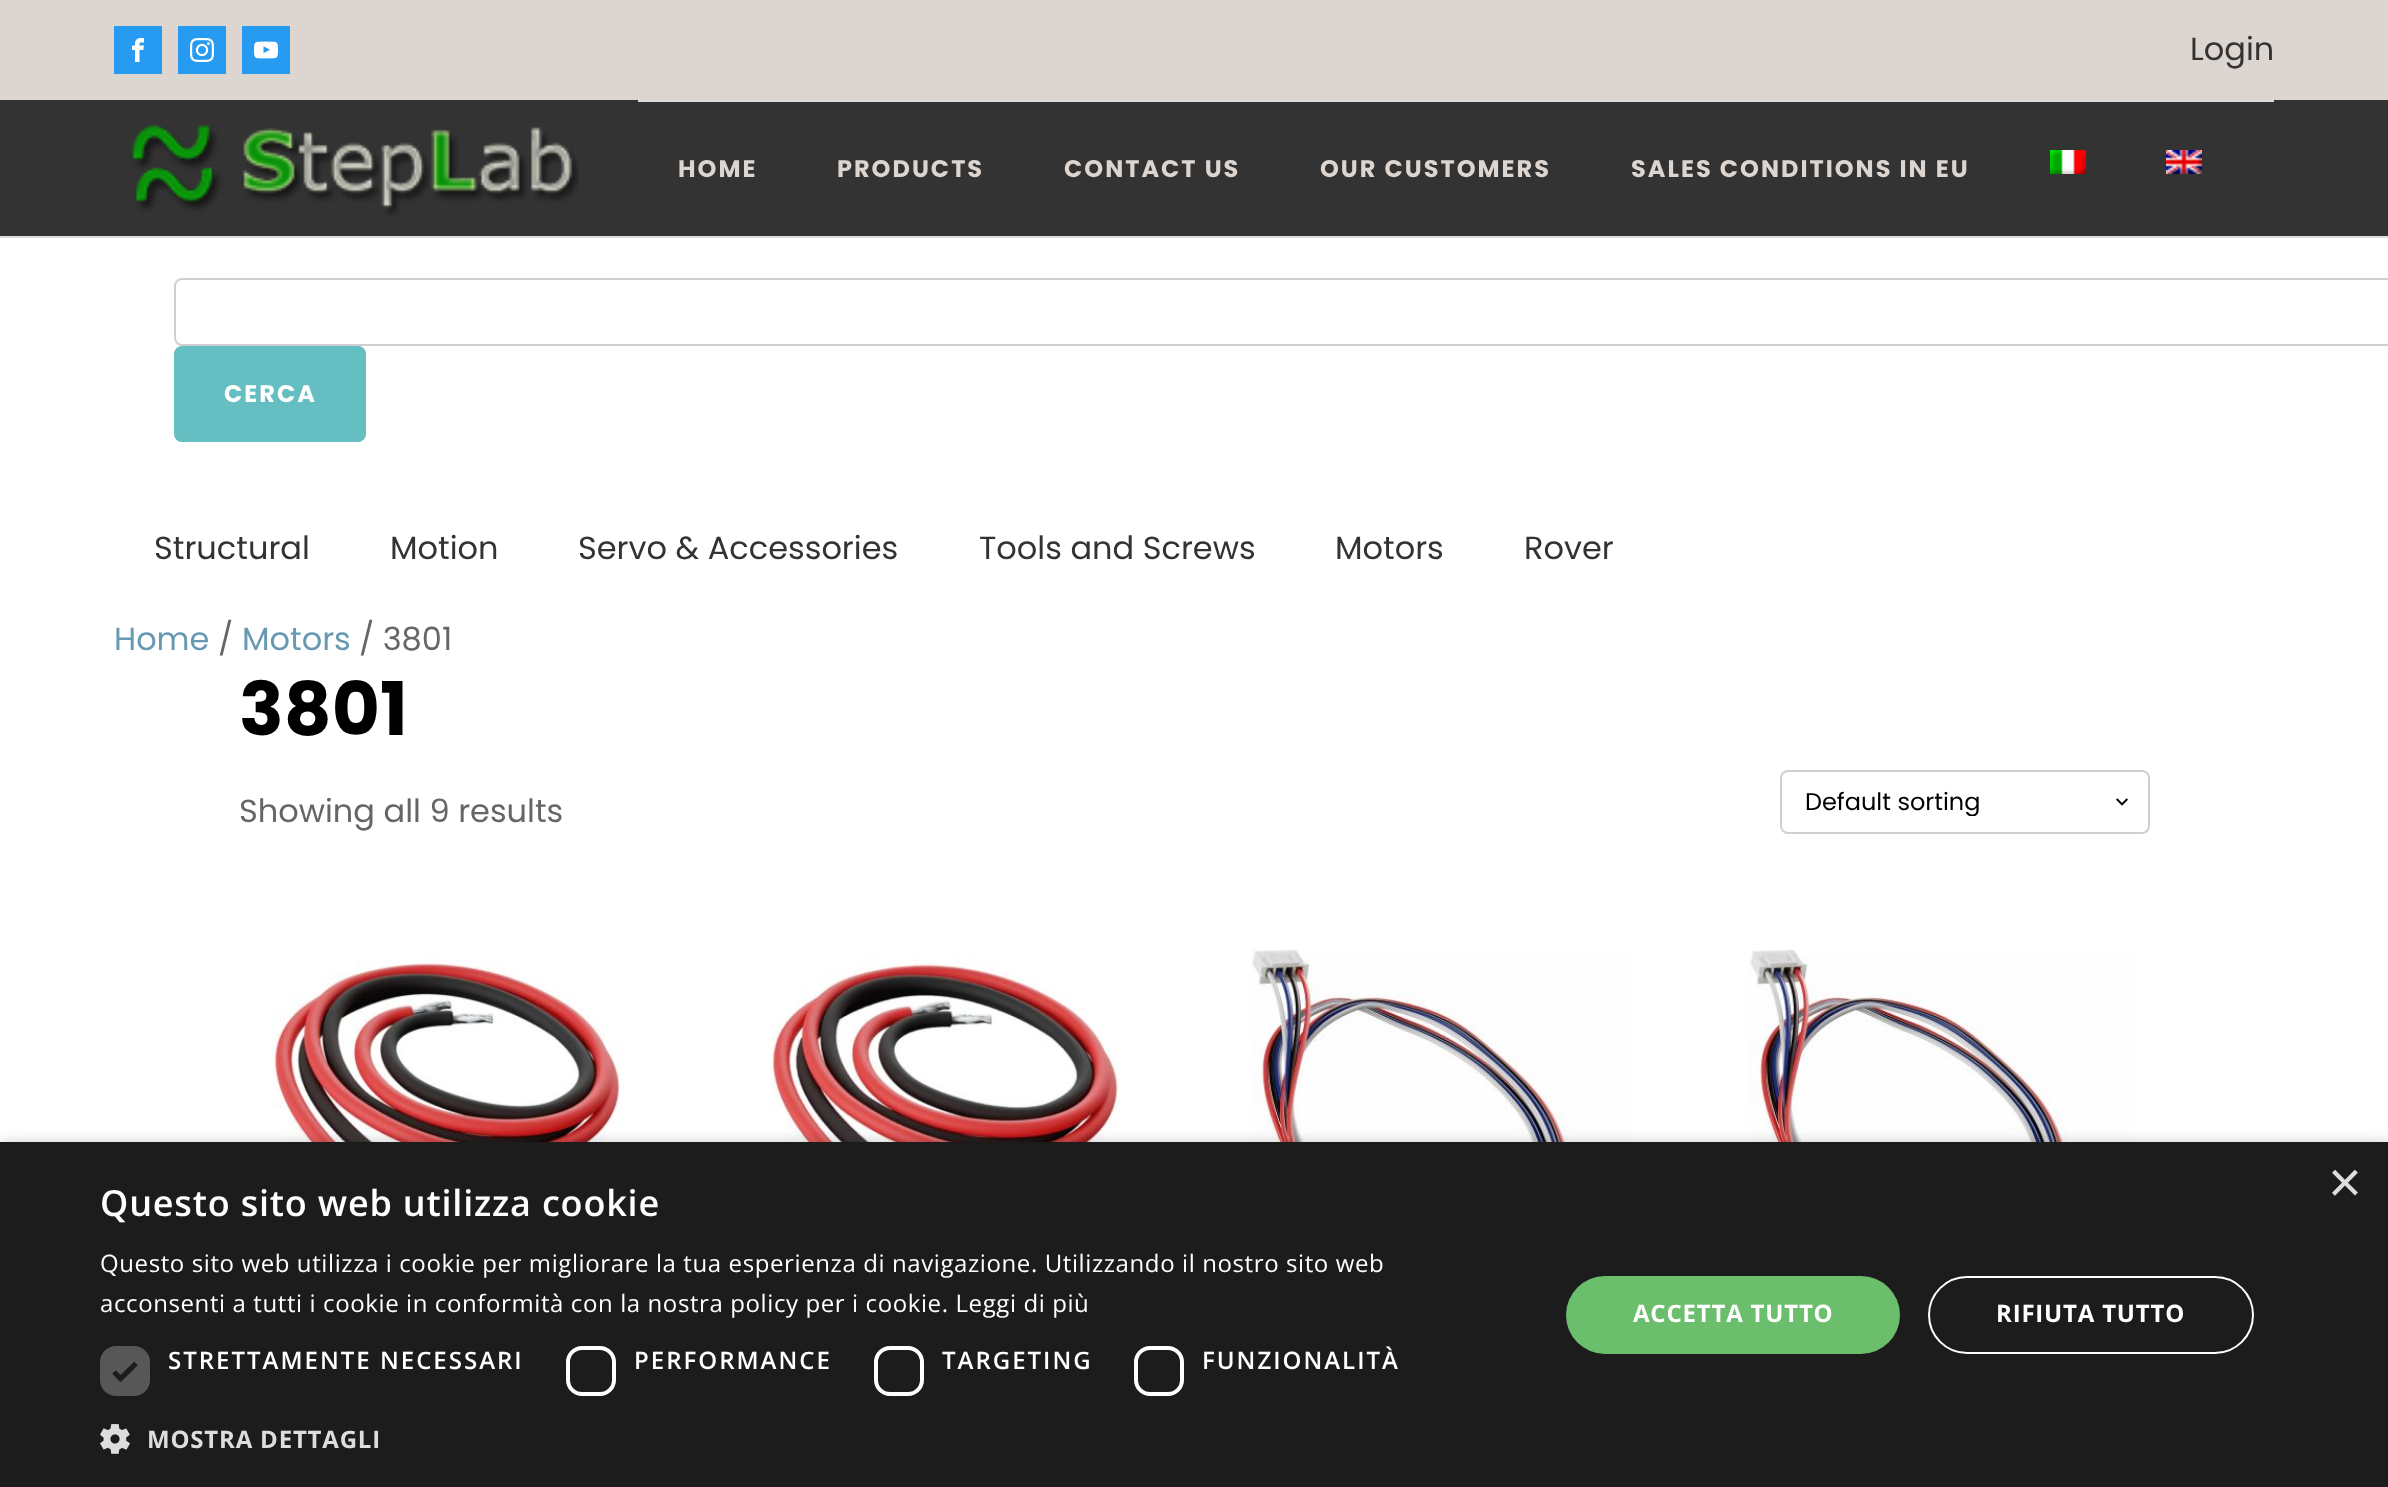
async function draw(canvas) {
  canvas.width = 2388;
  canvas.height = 1487;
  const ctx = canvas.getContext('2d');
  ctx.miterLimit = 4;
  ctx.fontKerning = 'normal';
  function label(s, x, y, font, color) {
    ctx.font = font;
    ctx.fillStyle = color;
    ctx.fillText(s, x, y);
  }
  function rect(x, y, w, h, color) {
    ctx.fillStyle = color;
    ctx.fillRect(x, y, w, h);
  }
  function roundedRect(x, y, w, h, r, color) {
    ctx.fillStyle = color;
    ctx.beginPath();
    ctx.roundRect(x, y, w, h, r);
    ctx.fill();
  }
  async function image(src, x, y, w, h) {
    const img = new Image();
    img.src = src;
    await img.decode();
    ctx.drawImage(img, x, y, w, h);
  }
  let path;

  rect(0, 0, 2388, 1487, '#fff');
  rect(0, 0, 2388, 100, '#ddd5d0');
  rect(114, 26, 48, 48, '#279af1');
  await image('assets/img1.png', 132, 38, 12, 24);
  rect(178, 26, 48, 48, '#279af1');
  await image('assets/img2.png', 190, 38, 24, 24);
  rect(242, 26, 48, 48, '#279af1');
  await image('assets/img3.png', 254, 41, 24, 18);
  label('Login', 2190, 60, '32px Poppins', '#333');
  rect(0, 100, 2388, 136, '#333');
  rect(0, 236, 2388, 2, '#ddd');
  await image('assets/img4.png', 129, 125, 450, 91);
  rect(638, 100, 1636, 2, '#ddd');
  ctx.letterSpacing = '2px';
  label('HOME', 678, 177, 'bold 24px Poppins', '#ddd5d0');
  label('PRODUCTS', 837, 177, 'bold 24px Poppins', '#ddd5d0');
  label('CONTACT US', 1064, 177, 'bold 24px Poppins', '#ddd5d0');
  label('OUR CUSTOMERS', 1320, 177, 'bold 24px Poppins', '#ddd5d0');
  label('SALES CONDITIONS IN EU', 1631, 177, 'bold 24px Poppins', '#ddd5d0');
  await image('assets/img5.png', 2050, 150, 36, 24);
  await image('assets/img6.png', 2166, 150, 36, 24);
  ctx.beginPath();
  ctx.roundRect(175, 279, 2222, 66, 7);
  ctx.strokeStyle = '#d3ced2';
  ctx.lineWidth = 2;
  ctx.stroke();
  ctx.fillStyle = '#65bec2';
  ctx.beginPath();
  ctx.roundRect(175, 347, 190, 94, 7);
  ctx.fill();
  ctx.strokeStyle = '#65bec2';
  ctx.stroke();
  label('CERCA', 224, 402, 'bold 24px Poppins', '#fff');
  ctx.letterSpacing = '0px';
  label('Structural', 154, 559, '32px Poppins', '#333');
  label('Motion', 390, 559, '32px Poppins', '#333');
  label('Servo & Accessories', 578, 559, '32px Poppins', '#333');
  label('Tools and Screws', 979, 559, '32px Poppins', '#333');
  label('Motors', 1335, 559, '32px Poppins', '#333');
  label('Rover', 1524, 559, '32px Poppins', '#333');
  label('Home', 114, 650, '32px Poppins', '#6799b2');
  label('/', 218, 650, '32px Poppins', '#666');
  label('Motors', 242, 650, '32px Poppins', '#6799b2');
  label('/ 3801', 359, 650, '32px Poppins', '#666');
  label('3801', 239, 735, 'bold 74px Poppins', '#000');
  label('Showing all 9 results', 239, 822, '32px Poppins', '#666');
  await image('assets/img7.png', 2116, 798, 12, 8);
  ctx.beginPath();
  ctx.roundRect(1781, 771, 368, 62, 7);
  ctx.strokeStyle = '#d3ced2';
  ctx.stroke();
  ctx.save();
  ctx.beginPath();
  ctx.rect(1806, 788, 294, 28);
  ctx.clip();
  label('Default sorting', 1805, 810, '24px Poppins', '#000');
  ctx.restore();
  await image('assets/img8.png', 271, 958, 352, 184);
  await image('assets/img9.png', 770, 957, 351, 185);
  await image('assets/img10.png', 1250, 949, 385, 193);
  await image('assets/img11.png', 1748, 949, 385, 193);
  ctx.fillStyle = '#00000059';
  ctx.filter = 'blur(8px)';
  ctx.beginPath();
  ctx.rect(2, 1146, 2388, 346);
  ctx.fill();
  ctx.filter = 'none';
  rect(0, 1142, 2388, 345, '#1c1c1c');
  label('×', 2328, 1202, '58px Liberation Sans', '#ddd');
  ctx.letterSpacing = '0.8px';
  label('Questo sito web utilizza cookie', 100, 1216, '600 36px Open Sans', '#fff');
  ctx.letterSpacing = '0.6px';
  label('Questo sito web utilizza i cookie per migliorare la tua esperienza di navigazione. Utilizzando il nostro sito web', 100, 1272, '24px Open Sans', '#fff');
  label('acconsenti a tutti i cookie in conformità con la nostra policy per i cookie. Leggi di più', 100, 1312, '24px Open Sans', '#fff');
  roundedRect(100, 1346, 50, 50, 16, '#575757');
  path = new Path2D('M114 1372L120.5 1378.5L136 1363.5');
  ctx.strokeStyle = '#1c1c1c';
  ctx.lineWidth = 5.2;
  ctx.stroke(path);
  ctx.letterSpacing = '2px';
  label('STRETTAMENTE NECESSARI', 168, 1369, '600 24px Open Sans', '#fff');
  ctx.beginPath();
  ctx.roundRect(568, 1348, 46, 46, 14);
  ctx.strokeStyle = '#fff';
  ctx.lineWidth = 4;
  ctx.stroke();
  label('PERFORMANCE', 634, 1369, '600 24px Open Sans', '#fff');
  ctx.beginPath();
  ctx.roundRect(876, 1348, 46, 46, 14);
  ctx.stroke();
  label('TARGETING', 942, 1369, '600 24px Open Sans', '#fff');
  ctx.beginPath();
  ctx.roundRect(1136, 1348, 46, 46, 14);
  ctx.stroke();
  label('FUNZIONALITÀ', 1202, 1369, '600 24px Open Sans', '#fff');
  await image('assets/img12.png', 100, 1424, 30, 30);
  ctx.letterSpacing = '0.8px';
  label('MOSTRA DETTAGLI', 147, 1448, 'bold 24px Open Sans', '#ddd');
  roundedRect(1566, 1276, 334, 78, 39, '#6bbe6b');
  label('ACCETTA TUTTO', 1633, 1322, 'bold 24px Open Sans', '#fff');
  ctx.beginPath();
  ctx.roundRect(1929, 1277, 324, 76, 38);
  ctx.lineWidth = 2;
  ctx.stroke();
  label('RIFIUTA TUTTO', 1996, 1322, 'bold 24px Open Sans', '#fff');
}

draw(document.querySelector('canvas'));
